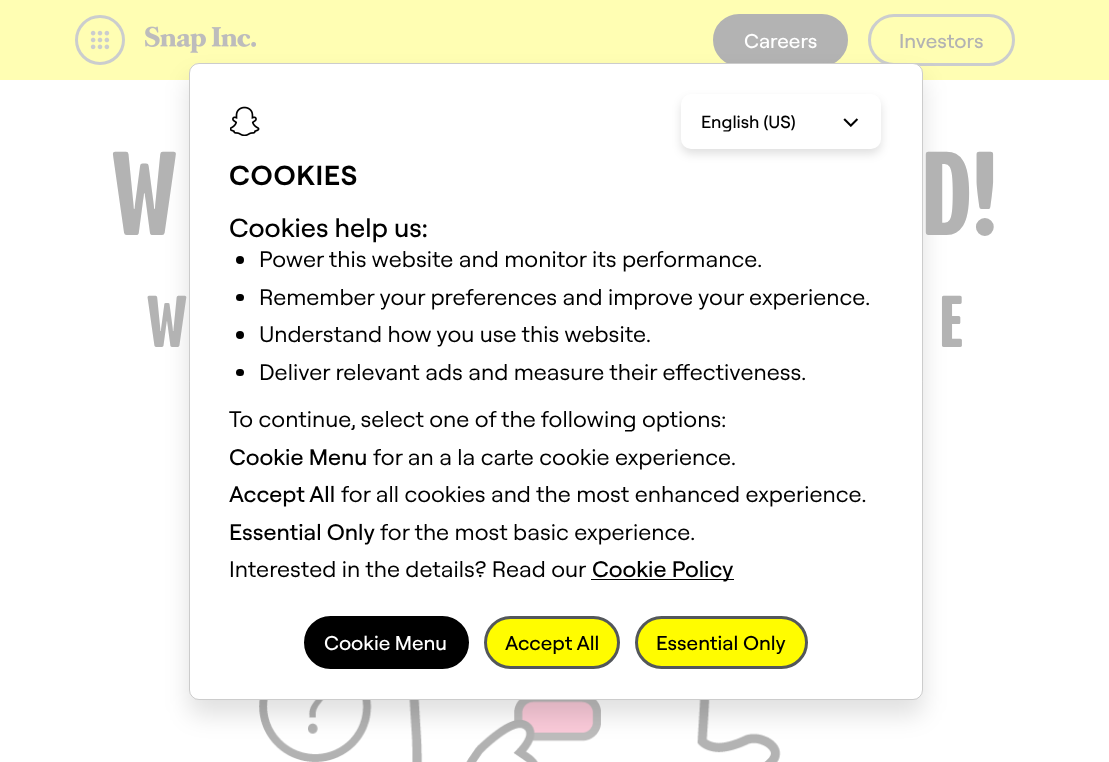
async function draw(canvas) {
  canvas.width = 1109;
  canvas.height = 762;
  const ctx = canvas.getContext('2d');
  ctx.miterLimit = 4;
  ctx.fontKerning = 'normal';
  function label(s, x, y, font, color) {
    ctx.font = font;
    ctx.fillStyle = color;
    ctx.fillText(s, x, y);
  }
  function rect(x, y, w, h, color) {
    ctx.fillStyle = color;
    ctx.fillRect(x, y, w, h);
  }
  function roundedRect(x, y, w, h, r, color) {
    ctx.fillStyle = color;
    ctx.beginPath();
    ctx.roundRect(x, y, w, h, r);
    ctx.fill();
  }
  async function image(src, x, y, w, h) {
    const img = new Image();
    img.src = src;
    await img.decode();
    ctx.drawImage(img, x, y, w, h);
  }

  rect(0, 0, 1109, 762, '#fff');
  rect(0, 0, 1109, 80, '#fffeb3');
  ctx.beginPath();
  ctx.arc(100, 40, 23.5, 0, 2 * Math.PI);
  ctx.strokeStyle = '#cbcdce';
  ctx.lineWidth = 3;
  ctx.stroke();
  await image('assets/img1.png', 90, 30, 20, 20);
  await image('assets/img2.png', 145, 26, 111, 27);
  ctx.fillStyle = '#b3b3b3';
  ctx.beginPath();
  ctx.roundRect(714.5, 15.5, 132, 49, 24.5);
  ctx.fill();
  ctx.strokeStyle = '#b3b3b3';
  ctx.stroke();
  label('Careers', 744, 48, '500 20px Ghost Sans', '#fff');
  ctx.beginPath();
  ctx.roundRect(869.5, 15.5, 144, 49, 24.5);
  ctx.strokeStyle = '#cbcdce';
  ctx.stroke();
  label('Investors', 899, 48, '500 20px Ghost Sans', '#b3b3b3');
  await image('assets/img5.png', 259, 700, 522, 62);
  ctx.fillStyle = '#0000001f';
  ctx.filter = 'blur(12.5px)';
  ctx.beginPath();
  ctx.roundRect(189, 78, 734, 637, 10);
  ctx.fill();
  ctx.filter = 'none';
  roundedRect(189, 63, 734, 637, 10, '#fff');
  ctx.beginPath();
  ctx.roundRect(189.5, 63.5, 733, 636, 9.5);
  ctx.strokeStyle = '#00000033';
  ctx.lineWidth = 1;
  ctx.stroke();
  await image('assets/img3.png', 230, 106, 30, 30);
  ctx.fillStyle = '#0000001f';
  ctx.filter = 'blur(5px)';
  ctx.beginPath();
  ctx.roundRect(681, 99, 200, 55, 10);
  ctx.fill();
  ctx.filter = 'none';
  roundedRect(681, 94, 200, 55, 10, '#fff');
  label('English (US)', 701, 128, '500 17.5px Ghost Sans', '#000');
  await image('assets/img4.png', 843, 118, 16, 9);
  ctx.letterSpacing = '0.75px';
  label('COOKIES', 229, 185, '600 27.5px Ghost Sans', '#000');
  ctx.letterSpacing = '0px';
  label('Cookies help us:', 229, 237, '500 26.25px Ghost Sans', '#000');
  ctx.beginPath();
  ctx.arc(240, 260, 4, 0, 2 * Math.PI);
  ctx.fill();
  label('Power this website and monitor its performance.', 259, 267, '22.5px Ghost Sans', '#000');
  roundedRect(236, 294, 8, 7, 3.5, '#000');
  label('Remember your preferences and improve your experience.', 259, 305, '22.5px Ghost Sans', '#000');
  ctx.beginPath();
  ctx.arc(240, 335, 4, 0, 2 * Math.PI);
  ctx.fill();
  label('Understand how you use this website.', 259, 342, '22.5px Ghost Sans', '#000');
  roundedRect(236, 369, 8, 7, 3.5, '#000');
  label('Deliver relevant ads and measure their effectiveness.', 259, 380, '22.5px Ghost Sans', '#000');
  label('To continue, select one of the following options:', 229, 427, '22.5px Ghost Sans', '#000');
  label('Cookie Menu', 229, 465, '500 22.5px Ghost Sans', '#000');
  label('for an a la carte cookie experience.', 373, 465, '22.5px Ghost Sans', '#000');
  label('Accept All', 229, 502, '500 22.5px Ghost Sans', '#000');
  label('for all cookies and the most enhanced experience.', 341, 502, '22.5px Ghost Sans', '#000');
  label('Essential Only', 229, 540, '500 22.5px Ghost Sans', '#000');
  label('for the most basic experience.', 380, 540, '22.5px Ghost Sans', '#000');
  label('Interested in the details? Read our', 229, 577, '22.5px Ghost Sans', '#000');
  rect(591, 579, 143, 1, '#000');
  label('Cookie Policy', 592, 577, '500 22.5px Ghost Sans', '#000');
  ctx.beginPath();
  ctx.roundRect(305.5, 617.5, 162, 50, 25);
  ctx.fill();
  ctx.strokeStyle = '#000';
  ctx.lineWidth = 3;
  ctx.stroke();
  label('Cookie Menu', 324, 650, '500 20px Ghost Sans', '#fff');
  ctx.fillStyle = '#fffc00';
  ctx.beginPath();
  ctx.roundRect(485.5, 617.5, 133, 50, 25);
  ctx.fill();
  ctx.strokeStyle = '#53575b';
  ctx.stroke();
  label('Accept All', 505, 650, '500 20px Ghost Sans', '#000');
  ctx.fillStyle = '#fffc00';
  ctx.beginPath();
  ctx.roundRect(636.5, 617.5, 170, 50, 25);
  ctx.fill();
  ctx.stroke();
  label('Essential Only', 656, 650, '500 20px Ghost Sans', '#000');
  label('W', 112, 235, '500 130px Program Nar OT', '#b3b3b3');
  label('D!', 921, 235, '500 130px Program Nar OT', '#b3b3b3');
  ctx.letterSpacing = '0.75px';
  label('W', 147, 347, '500 80px Program Nar OT', '#b3b3b3');
  label('E', 939, 347, '500 80px Program Nar OT', '#b3b3b3');
}

draw(document.querySelector('canvas'));
